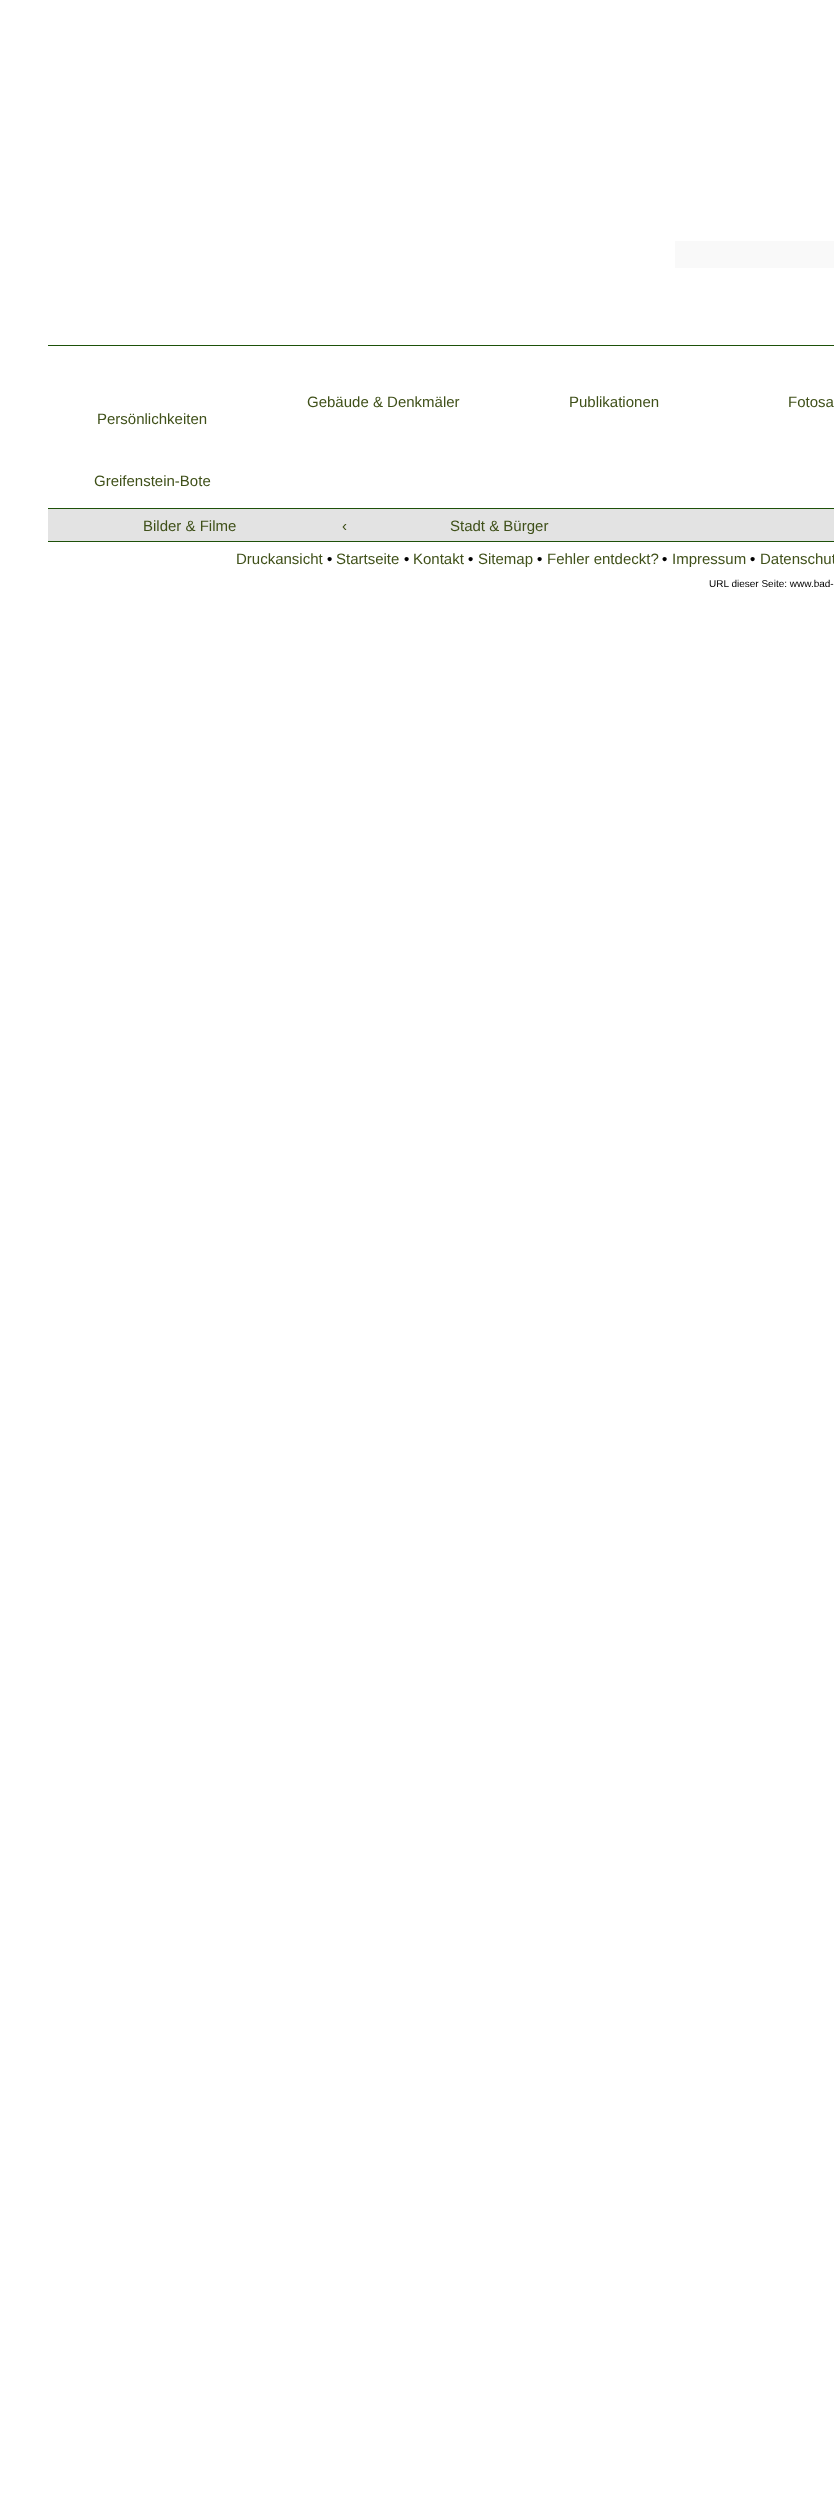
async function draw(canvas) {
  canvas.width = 834;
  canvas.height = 2514;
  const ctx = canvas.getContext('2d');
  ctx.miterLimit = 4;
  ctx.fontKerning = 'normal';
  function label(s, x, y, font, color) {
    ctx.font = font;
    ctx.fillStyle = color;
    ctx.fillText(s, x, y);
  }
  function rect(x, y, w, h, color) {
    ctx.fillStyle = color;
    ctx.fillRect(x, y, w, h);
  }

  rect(0, 0, 834, 2514, '#fff');
  rect(675, 241, 159, 27, '#f9f9f9');
  rect(48, 345, 786, 1, '#1d5109');
  label('Gebäude & Denkmäler', 307, 407, '15px Liberation Sans', '#3f5019');
  label('Publikationen', 569, 407, '15px Liberation Sans', '#3f5019');
  label('Fotosa', 788, 407, '15px Liberation Sans', '#3f5019');
  label('Persönlichkeiten', 97, 424, '15px Liberation Sans', '#3f5019');
  label('Greifenstein-Bote', 94, 486, '15px Liberation Sans', '#3f5019');
  rect(48, 508, 786, 1, '#1d5109');
  rect(48, 509, 786, 32, '#e3e3e3');
  label('Bilder & Filme', 143, 531, '15px Liberation Sans', '#3f5019');
  label('‹', 342, 531, '15px Liberation Sans', '#3f5019');
  label('Stadt & Bürger', 450, 531, '15px Liberation Sans', '#3f5019');
  rect(48, 541, 786, 1, '#1d5109');
  label('Druckansicht', 236, 564, '15px Liberation Sans', '#3f5019');
  label('•', 327, 564, 'bold 15px Liberation Sans', '#000');
  label('Startseite', 336, 564, '15px Liberation Sans', '#3f5019');
  label('•', 404, 564, 'bold 15px Liberation Sans', '#000');
  label('Kontakt', 413, 564, '15px Liberation Sans', '#3f5019');
  label('•', 468, 564, 'bold 15px Liberation Sans', '#000');
  label('Sitemap', 478, 564, '15px Liberation Sans', '#3f5019');
  label('•', 537, 564, 'bold 15px Liberation Sans', '#000');
  label('Fehler entdeckt?', 547, 564, '15px Liberation Sans', '#3f5019');
  label('•', 662, 564, 'bold 15px Liberation Sans', '#000');
  label('Impressum', 672, 564, '15px Liberation Sans', '#3f5019');
  label('•', 750, 564, 'bold 15px Liberation Sans', '#000');
  label('Datenschut', 760, 564, '15px Liberation Sans', '#3f5019');
  label('URL dieser Seite: www.bad-', 709, 587, '10px Liberation Sans', '#000');
}

draw(document.querySelector('canvas'));
